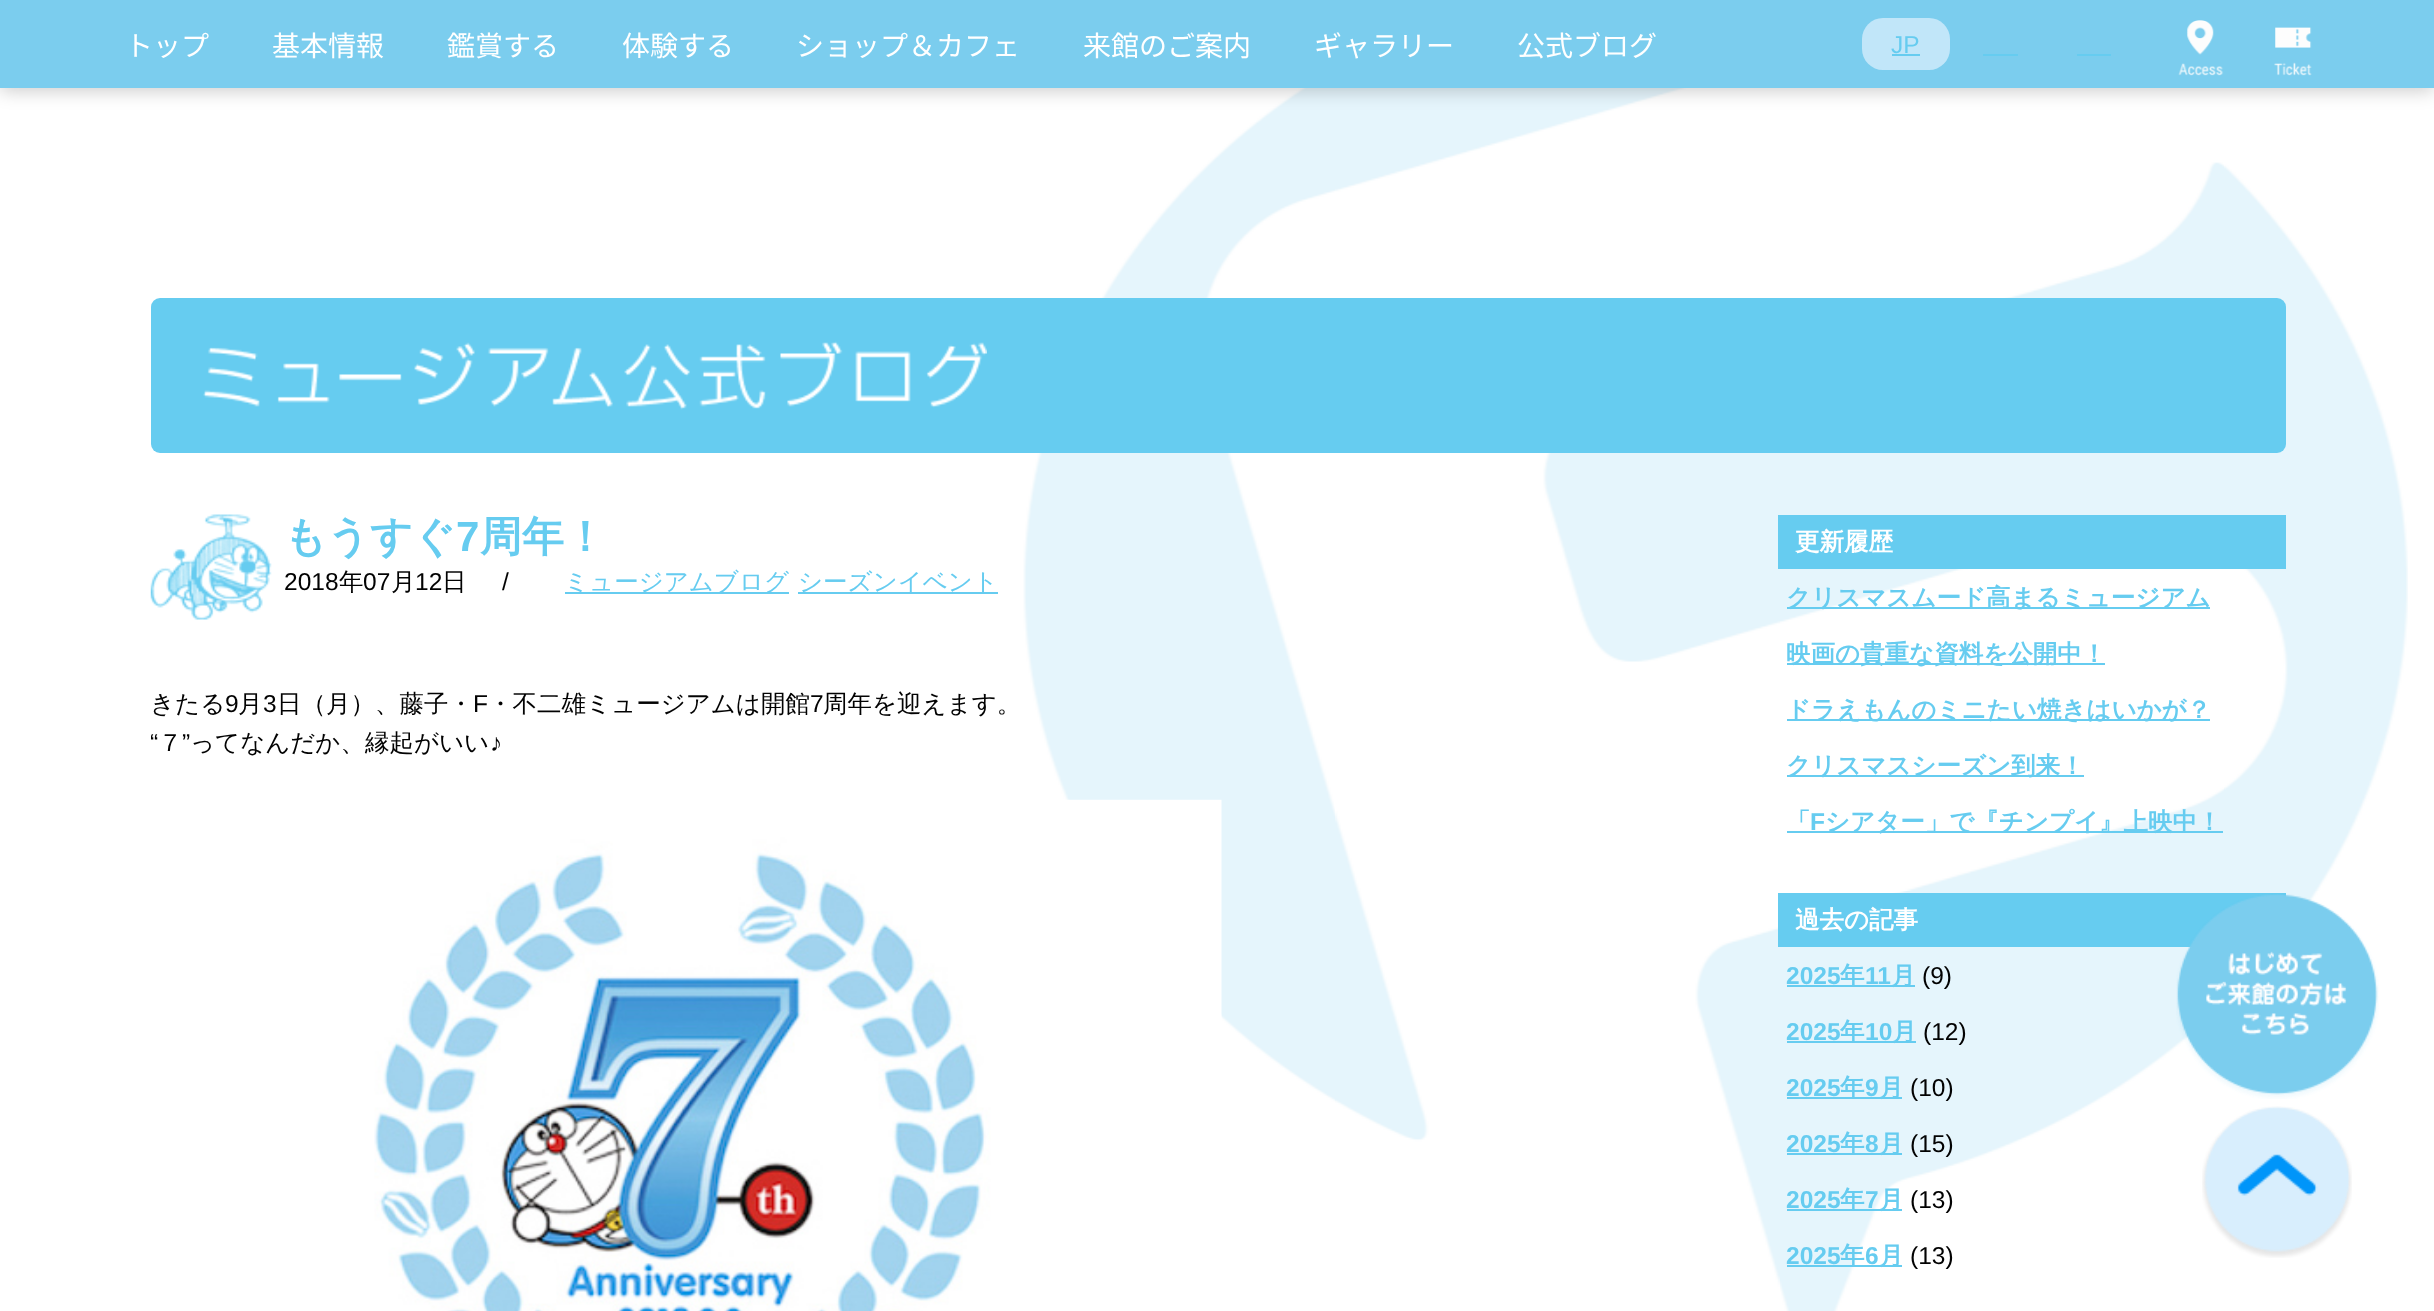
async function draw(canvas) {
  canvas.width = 2434;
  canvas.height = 1311;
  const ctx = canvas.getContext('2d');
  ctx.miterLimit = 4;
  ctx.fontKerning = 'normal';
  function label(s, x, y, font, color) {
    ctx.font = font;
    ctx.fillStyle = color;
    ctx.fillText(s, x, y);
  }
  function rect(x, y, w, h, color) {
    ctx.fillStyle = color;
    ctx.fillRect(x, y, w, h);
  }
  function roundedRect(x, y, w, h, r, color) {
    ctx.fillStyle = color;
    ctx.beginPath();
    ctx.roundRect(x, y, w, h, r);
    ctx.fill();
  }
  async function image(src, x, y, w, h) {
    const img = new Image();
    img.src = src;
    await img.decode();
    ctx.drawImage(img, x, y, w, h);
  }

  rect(0, 0, 2434, 1311, '#fff');
  await image('assets/img1.png', 1023, 88, 1385, 1223);
  ctx.fillStyle = '#00000033';
  ctx.filter = 'blur(9px)';
  ctx.beginPath();
  ctx.rect(0, 4, 2434, 87);
  ctx.fill();
  ctx.filter = 'none';
  rect(0, 0, 2434, 88, '#7bcdee');
  label('トップ', 125, 56, '100 28px Noto Sans JP', '#fff');
  label('基本情報', 272, 56, '100 28px Noto Sans JP', '#fff');
  label('鑑賞する', 447, 56, '100 28px Noto Sans JP', '#fff');
  label('体験する', 622, 56, '100 28px Noto Sans JP', '#fff');
  label('ショップ＆カフェ', 796, 56, '100 28px Noto Sans JP', '#fff');
  label('来館のご案内', 1083, 56, '100 28px Noto Sans JP', '#fff');
  label('ギャラリー', 1314, 56, '100 28px Noto Sans JP', '#fff');
  label('公式ブログ', 1517, 56, '100 28px Noto Sans JP', '#fff');
  roundedRect(1862, 18, 88, 52, 21, '#c1e6f9');
  label('JP', 1891, 53, '24.5px Liberation Sans', '#66ccf0');
  rect(1892, 54, 28, 2, '#66ccf0');
  rect(1983, 54, 35, 2, '#66ccf0');
  rect(2077, 54, 34, 2, '#66ccf0');
  await image('assets/img2.png', 2178, 20, 46, 56);
  await image('assets/img3.png', 2274, 27, 38, 49);
  roundedRect(151, 298, 2135, 155, 9, '#66ccf0');
  await image('assets/img4.png', 203, 341, 784, 69);
  await image('assets/img5.png', 150, 514, 122, 106);
  label('もうすぐ', 284, 551, 'bold 42px WenQuanYi Zen Hei', '#66ccf0');
  label('7', 456, 551, 'bold 42px Liberation Sans', '#66ccf0');
  label('周年！', 480, 551, 'bold 42px WenQuanYi Zen Hei', '#66ccf0');
  label('2018', 284, 590, '24.5px Liberation Sans', '#020202');
  label('年', 339, 590, '500 24.5px WenQuanYi Zen Hei', '#020202');
  label('07', 363, 590, '24.5px Liberation Sans', '#020202');
  label('月', 391, 590, '500 24.5px WenQuanYi Zen Hei', '#020202');
  label('12', 415, 590, '24.5px Liberation Sans', '#020202');
  label('日', 442, 590, '500 24.5px WenQuanYi Zen Hei', '#020202');
  label('/', 502, 590, '24.5px Liberation Sans', '#020202');
  rect(565, 592, 224, 2, '#66ccf0');
  label('ミュージアムブログ', 564, 590, '500 24.5px WenQuanYi Zen Hei', '#66ccf0');
  rect(798, 592, 200, 2, '#66ccf0');
  label('シーズンイベント', 798, 590, '500 24.5px WenQuanYi Zen Hei', '#66ccf0');
  label('きたる', 150, 712, '500 24.5px WenQuanYi Zen Hei', '#020202');
  label('9', 225, 712, '24.5px Liberation Sans', '#020202');
  label('月', 238, 712, '500 24.5px WenQuanYi Zen Hei', '#020202');
  label('3', 263, 712, '24.5px Liberation Sans', '#020202');
  label('日（月）、藤子・', 277, 712, '500 24.5px WenQuanYi Zen Hei', '#020202');
  label('F', 473, 712, '24.5px Liberation Sans', '#020202');
  label('・不二雄ミュージアムは開館', 488, 712, '500 24.5px WenQuanYi Zen Hei', '#020202');
  label('7', 810, 712, '24.5px Liberation Sans', '#020202');
  label('周年を迎えます。', 823, 712, '500 24.5px WenQuanYi Zen Hei', '#020202');
  ctx.save();
  ctx.beginPath();
  ctx.rect(151, 298, 2135, 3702);
  ctx.clip();
  label('“', 150, 751, '24.5px Liberation Sans', '#020202');
  ctx.restore();
  label('７', 158, 751, '500 24.5px WenQuanYi Zen Hei', '#020202');
  label('”', 182, 751, '24.5px Liberation Sans', '#020202');
  label('ってなんだか、縁起がいい', 190, 751, '500 24.5px WenQuanYi Zen Hei', '#020202');
  label('♪', 490, 751, '24.5px Liberation Sans', '#020202');
  await image('assets/img6.png', 374, 799, 848, 512);
  rect(1778, 515, 508, 54, '#66ccf0');
  label('更新履歴', 1795, 550, 'bold 24.5px WenQuanYi Zen Hei', '#fff');
  rect(1787, 607, 423, 2, '#66ccf0');
  label('クリスマスムード高まるミュージアム', 1786, 606, 'bold 24.5px WenQuanYi Zen Hei', '#66ccf0');
  rect(1787, 663, 318, 2, '#66ccf0');
  label('映画の貴重な資料を公開中！', 1786, 662, 'bold 24.5px WenQuanYi Zen Hei', '#66ccf0');
  rect(1787, 719, 423, 2, '#66ccf0');
  label('ドラえもんのミニたい焼きはいかが？', 1786, 718, 'bold 24.5px WenQuanYi Zen Hei', '#66ccf0');
  rect(1787, 775, 297, 2, '#66ccf0');
  label('クリスマスシーズン到来！', 1786, 774, 'bold 24.5px WenQuanYi Zen Hei', '#66ccf0');
  label('「', 1786, 830, 'bold 24.5px WenQuanYi Zen Hei', '#66ccf0');
  label('F', 1810, 830, 'bold 24.5px Liberation Sans', '#66ccf0');
  rect(1787, 831, 436, 2, '#66ccf0');
  label('シアター」で『チンプイ』上映中！', 1825, 830, 'bold 24.5px WenQuanYi Zen Hei', '#66ccf0');
  rect(1778, 893, 508, 54, '#66ccf0');
  label('過去の記事', 1795, 928, 'bold 24.5px WenQuanYi Zen Hei', '#fff');
  label('2025', 1786, 984, 'bold 24.5px Liberation Sans', '#66ccf0');
  rect(1787, 985, 128, 2, '#66ccf0');
  label('年', 1840, 984, 'bold 24.5px WenQuanYi Zen Hei', '#66ccf0');
  label('11', 1865, 984, 'bold 24.5px Liberation Sans', '#66ccf0');
  label('月', 1891, 984, 'bold 24.5px WenQuanYi Zen Hei', '#66ccf0');
  label('(9)', 1922, 984, '24.5px Liberation Sans', '#020202');
  label('2025', 1786, 1040, 'bold 24.5px Liberation Sans', '#66ccf0');
  rect(1787, 1041, 129, 2, '#66ccf0');
  label('年', 1840, 1040, 'bold 24.5px WenQuanYi Zen Hei', '#66ccf0');
  label('10', 1865, 1040, 'bold 24.5px Liberation Sans', '#66ccf0');
  label('月', 1892, 1040, 'bold 24.5px WenQuanYi Zen Hei', '#66ccf0');
  label('(12)', 1923, 1040, '24.5px Liberation Sans', '#020202');
  label('2025', 1786, 1096, 'bold 24.5px Liberation Sans', '#66ccf0');
  rect(1787, 1097, 115, 2, '#66ccf0');
  label('年', 1840, 1096, 'bold 24.5px WenQuanYi Zen Hei', '#66ccf0');
  label('9', 1865, 1096, 'bold 24.5px Liberation Sans', '#66ccf0');
  label('月', 1879, 1096, 'bold 24.5px WenQuanYi Zen Hei', '#66ccf0');
  label('(10)', 1910, 1096, '24.5px Liberation Sans', '#020202');
  label('2025', 1786, 1152, 'bold 24.5px Liberation Sans', '#66ccf0');
  rect(1787, 1153, 115, 2, '#66ccf0');
  label('年', 1840, 1152, 'bold 24.5px WenQuanYi Zen Hei', '#66ccf0');
  label('8', 1865, 1152, 'bold 24.5px Liberation Sans', '#66ccf0');
  label('月', 1879, 1152, 'bold 24.5px WenQuanYi Zen Hei', '#66ccf0');
  label('(15)', 1910, 1152, '24.5px Liberation Sans', '#020202');
  label('2025', 1786, 1208, 'bold 24.5px Liberation Sans', '#66ccf0');
  rect(1787, 1209, 115, 2, '#66ccf0');
  label('年', 1840, 1208, 'bold 24.5px WenQuanYi Zen Hei', '#66ccf0');
  label('7', 1865, 1208, 'bold 24.5px Liberation Sans', '#66ccf0');
  label('月', 1879, 1208, 'bold 24.5px WenQuanYi Zen Hei', '#66ccf0');
  label('(13)', 1910, 1208, '24.5px Liberation Sans', '#020202');
  label('2025', 1786, 1264, 'bold 24.5px Liberation Sans', '#66ccf0');
  rect(1787, 1265, 115, 2, '#66ccf0');
  label('年', 1840, 1264, 'bold 24.5px WenQuanYi Zen Hei', '#66ccf0');
  label('6', 1865, 1264, 'bold 24.5px Liberation Sans', '#66ccf0');
  label('月', 1879, 1264, 'bold 24.5px WenQuanYi Zen Hei', '#66ccf0');
  label('(13)', 1910, 1264, '24.5px Liberation Sans', '#020202');
  await image('assets/img7.png', 2176, 894, 203, 205);
  await image('assets/img8.png', 2202, 1106, 150, 152);
}

draw(document.querySelector('canvas'));
